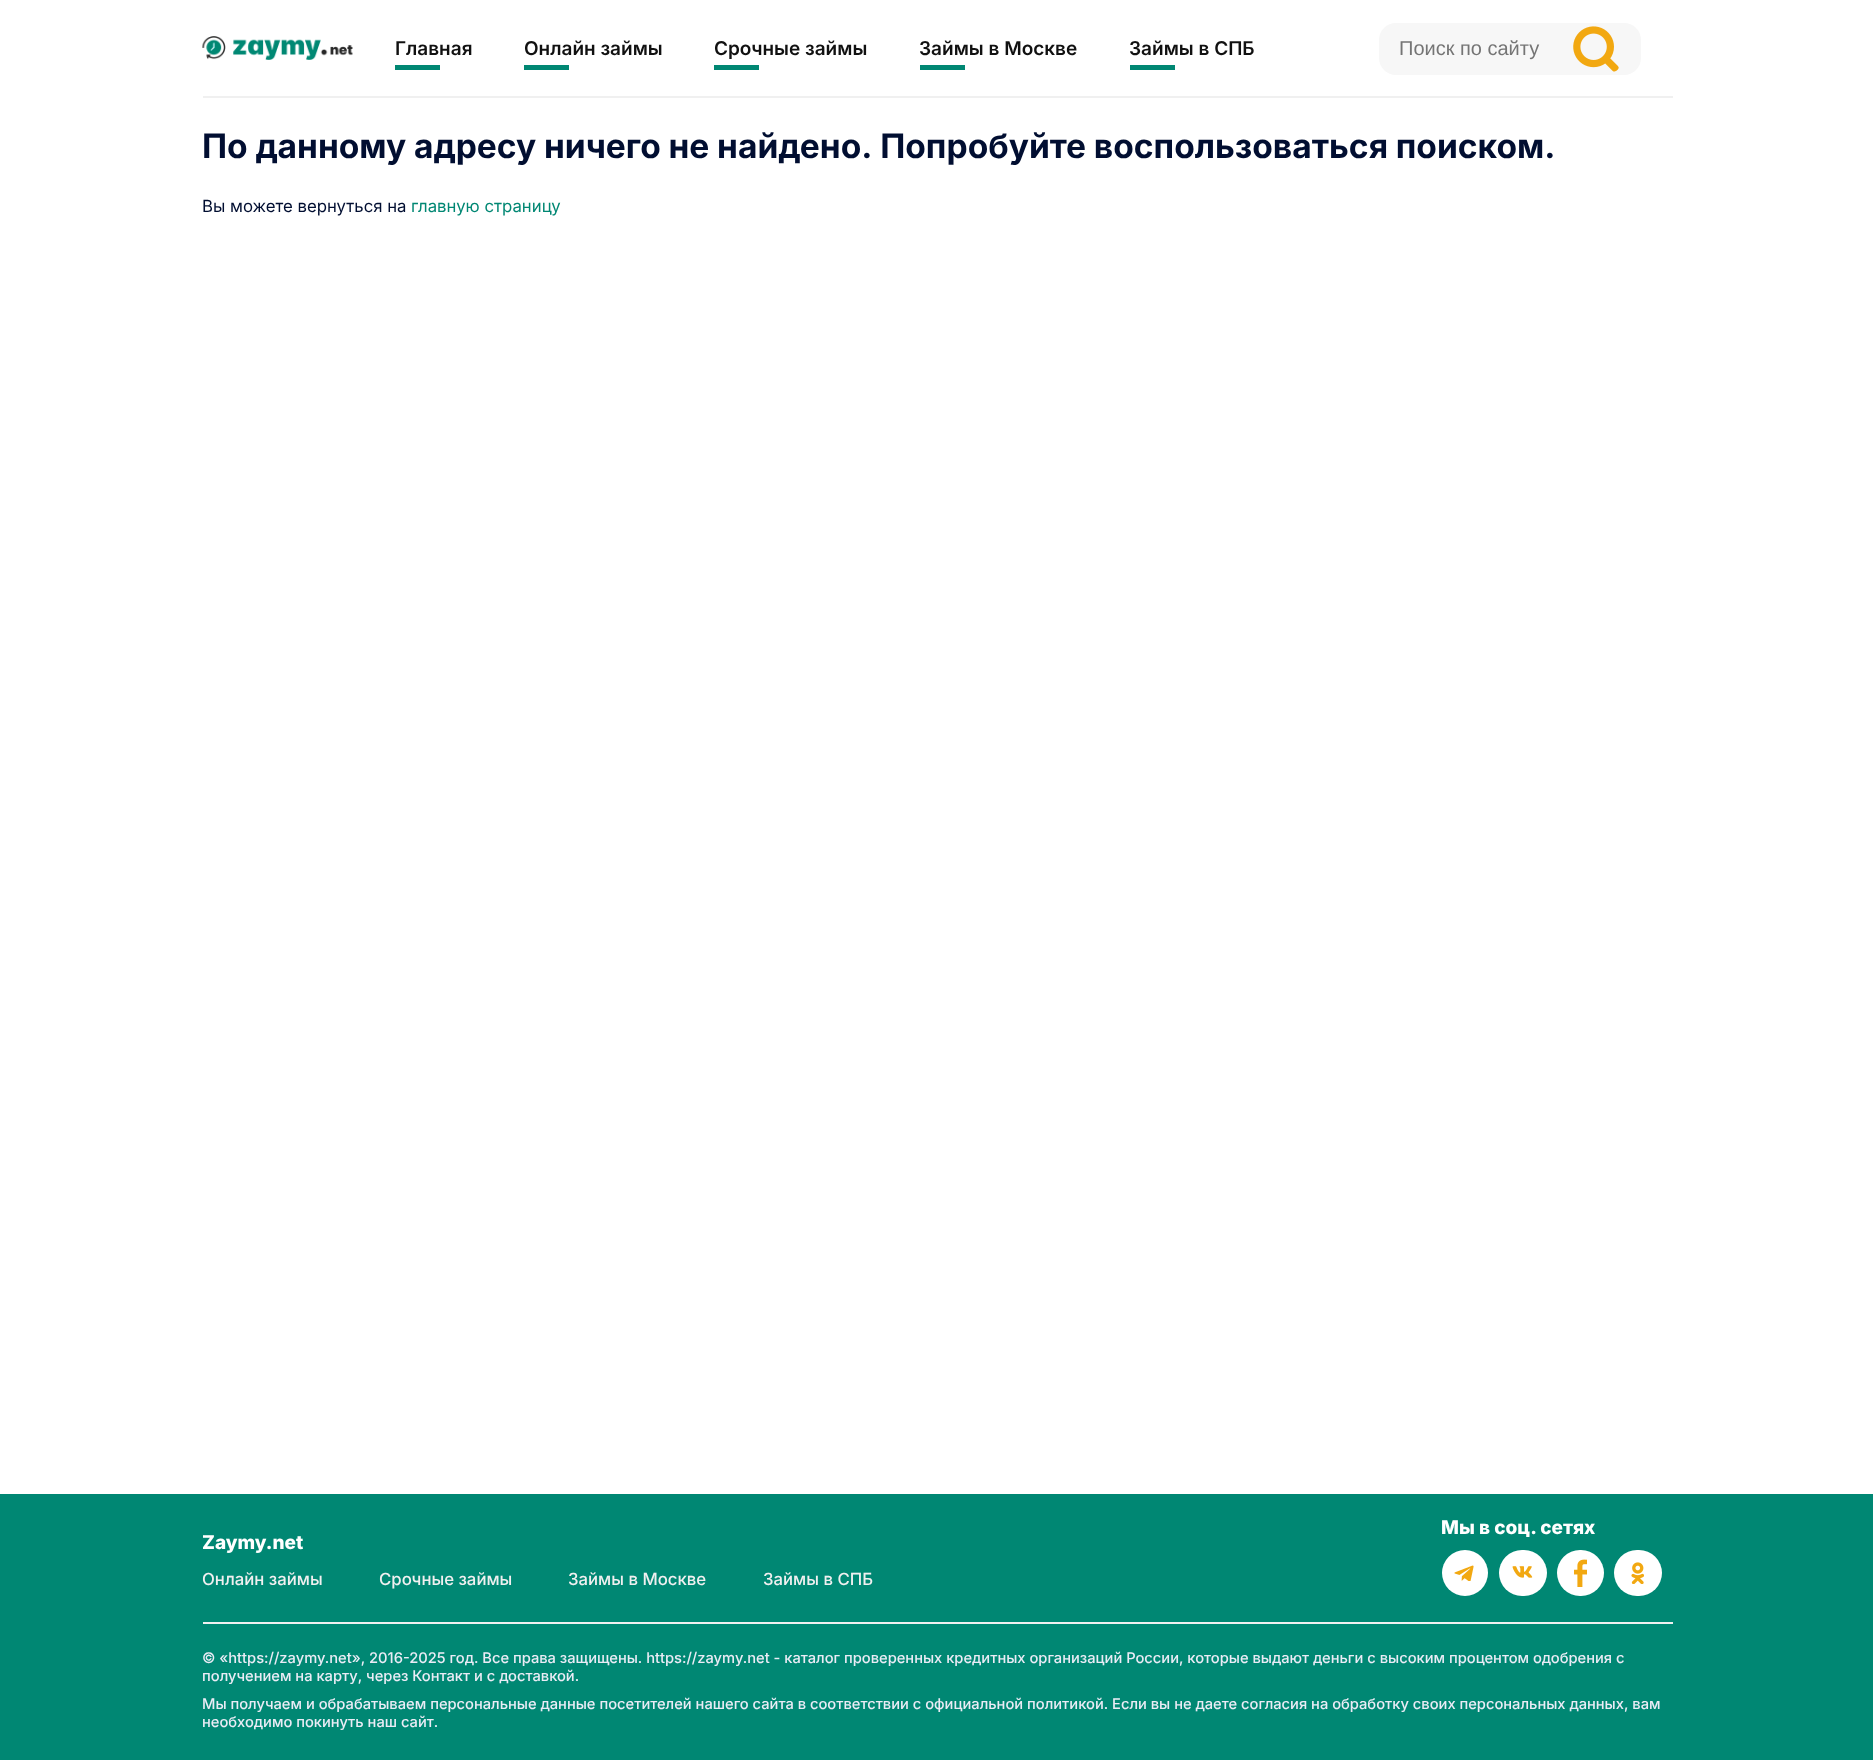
async function draw(canvas) {
  canvas.width = 1873;
  canvas.height = 1760;
  const ctx = canvas.getContext('2d');
  ctx.miterLimit = 4;
  ctx.fontKerning = 'normal';
  function label(s, x, y, font, color) {
    ctx.font = font;
    ctx.fillStyle = color;
    ctx.fillText(s, x, y);
  }
  function rect(x, y, w, h, color) {
    ctx.fillStyle = color;
    ctx.fillRect(x, y, w, h);
  }
  function roundedRect(x, y, w, h, r, color) {
    ctx.fillStyle = color;
    ctx.beginPath();
    ctx.roundRect(x, y, w, h, r);
    ctx.fill();
  }
  async function image(src, x, y, w, h) {
    const img = new Image();
    img.src = src;
    await img.decode();
    ctx.drawImage(img, x, y, w, h);
  }

  rect(0, 0, 1873, 1760, '#fff');
  rect(203, 96, 1470, 2, '#f0f0f0');
  await image('assets/img1.png', 202, 36, 151, 24);
  label('Главная', 395, 55, '600 19px Inter', '#111');
  rect(395, 65, 45, 5, '#008773');
  label('Онлайн займы', 524, 55, '600 19px Inter', '#111');
  rect(524, 65, 45, 5, '#008773');
  label('Срочные займы', 714, 55, '600 19px Inter', '#111');
  rect(714, 65, 45, 5, '#008773');
  label('Займы в Москве', 919, 55, '600 19px Inter', '#111');
  rect(920, 65, 45, 5, '#008773');
  label('Займы в СПБ', 1129, 55, '600 19px Inter', '#111');
  rect(1130, 65, 45, 5, '#008773');
  roundedRect(1379, 23, 262, 52, 17, '#f7f7f7');
  label('Поиск по сайту', 1399, 55, '20px Liberation Sans', '#757575');
  await image('assets/img2.png', 1573, 26, 46, 46);
  ctx.wordSpacing = '-0.25px';
  label('По данному адресу ничего не найдено. Попробуйте воспользоваться поиском.', 202, 158, 'bold 33.6px Inter', '#010e31');
  ctx.wordSpacing = '0px';
  label('Вы можете вернуться на', 202, 212, '16.75px Inter', '#010e31');
  label('главную страницу', 411, 212, '16.75px Inter', '#008773');
  rect(0, 1494, 1873, 266, '#008773');
  label('Мы в соц. сетях', 1441, 1534, '800 19px Inter', '#fff');
  ctx.beginPath();
  ctx.arc(1465, 1573, 23, 0, 2 * Math.PI);
  ctx.fill();
  await image('assets/img3.png', 1454, 1565, 20, 16);
  roundedRect(1499, 1550, 48, 46, 23, '#fff');
  await image('assets/img4.png', 1512, 1566, 21, 12);
  roundedRect(1557, 1550, 47, 46, 23, '#fff');
  await image('assets/img5.png', 1574, 1559, 13, 28);
  roundedRect(1614, 1550, 48, 46, 23, '#fff');
  await image('assets/img6.png', 1631, 1562, 13, 22);
  label('Zaymy.net', 202, 1549, '800 19px Inter', '#fff');
  label('Онлайн займы', 202, 1585, '500 16.75px Inter', '#f0f0f0');
  label('Срочные займы', 379, 1585, '500 16.75px Inter', '#f0f0f0');
  label('Займы в Москве', 568, 1585, '500 16.75px Inter', '#f0f0f0');
  label('Займы в СПБ', 763, 1585, '500 16.75px Inter', '#f0f0f0');
  rect(203, 1622, 1470, 2, '#f0f0f0');
  label('© «https://zaymy.net», 2016-2025 год. Все права защищены. https://zaymy.net - каталог проверенных кредитных организаций России, которые выдают деньги с высоким процентом одобрения с', 202, 1663, '500 14.7px Inter', '#eaecf6');
  label('получением на карту, через Контакт и с доставкой.', 202, 1681, '500 14.7px Inter', '#eaecf6');
  label('Мы получаем и обрабатываем персональные данные посетителей нашего сайта в соответствии с официальной политикой. Если вы не даете согласия на обработку своих персональных данных, вам', 202, 1709, '500 14.7px Inter', '#eaecf6');
  label('необходимо покинуть наш сайт.', 202, 1727, '500 14.7px Inter', '#eaecf6');
}

draw(document.querySelector('canvas'));
